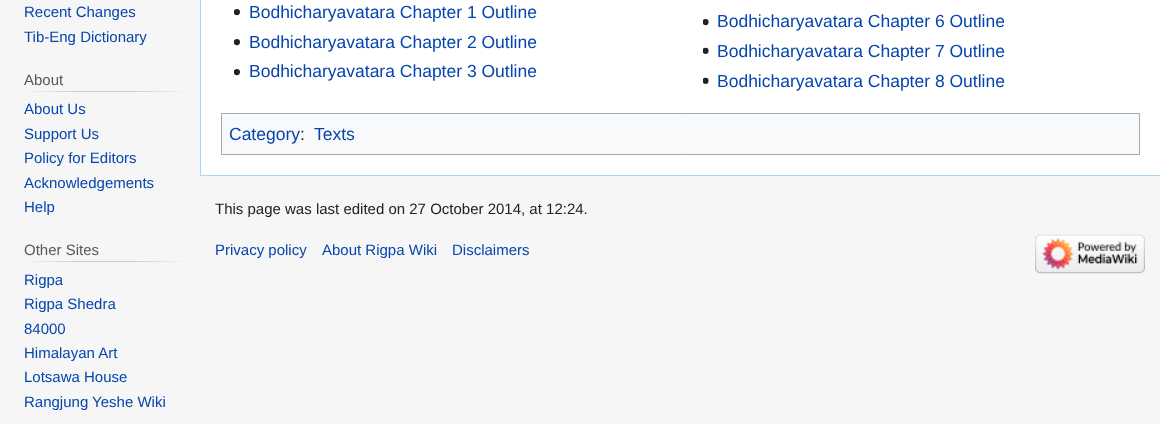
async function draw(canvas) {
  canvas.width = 1160;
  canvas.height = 424;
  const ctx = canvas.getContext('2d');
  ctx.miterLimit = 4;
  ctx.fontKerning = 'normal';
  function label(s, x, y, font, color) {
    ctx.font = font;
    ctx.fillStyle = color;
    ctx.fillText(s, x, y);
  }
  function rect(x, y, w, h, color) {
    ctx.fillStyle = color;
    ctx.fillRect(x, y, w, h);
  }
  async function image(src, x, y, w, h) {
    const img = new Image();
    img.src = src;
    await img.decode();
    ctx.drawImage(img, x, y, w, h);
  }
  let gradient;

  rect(0, 0, 1160, 424, '#f6f6f6');
  label('Recent Changes', 24, 17, '15px Liberation Sans', '#0645ad');
  label('Tib-Eng Dictionary', 24, 42, '15px Liberation Sans', '#0645ad');
  gradient = ctx.createLinearGradient(24, 92, 188, 92);
  gradient.addColorStop(0, '#f6f6f6');
  gradient.addColorStop(0.33, '#c8ccd1');
  gradient.addColorStop(0.66, '#c8ccd1');
  gradient.addColorStop(1, '#f6f6f6');
  ctx.fillStyle = gradient;
  ctx.fillRect(24, 91, 164, 1);
  label('About', 24, 85, '15px Liberation Sans', '#54595d');
  label('About Us', 24, 114, '15px Liberation Sans', '#0645ad');
  label('Support Us', 24, 139, '15px Liberation Sans', '#0645ad');
  label('Policy for Editors', 24, 163, '15px Liberation Sans', '#0645ad');
  label('Acknowledgements', 24, 188, '15px Liberation Sans', '#0645ad');
  label('Help', 24, 212, '15px Liberation Sans', '#0645ad');
  gradient = ctx.createLinearGradient(24, 262, 188, 262);
  gradient.addColorStop(0, '#f6f6f6');
  gradient.addColorStop(0.33, '#c8ccd1');
  gradient.addColorStop(0.66, '#c8ccd1');
  gradient.addColorStop(1, '#f6f6f6');
  ctx.fillStyle = gradient;
  ctx.fillRect(24, 261, 164, 1);
  label('Other Sites', 24, 255, '15px Liberation Sans', '#54595d');
  label('Rigpa', 24, 285, '15px Liberation Sans', '#0645ad');
  label('Rigpa Shedra', 24, 309, '15px Liberation Sans', '#0645ad');
  label('84000', 24, 334, '15px Liberation Sans', '#0645ad');
  label('Himalayan Art', 24, 358, '15px Liberation Sans', '#0645ad');
  label('Lotsawa House', 24, 382, '15px Liberation Sans', '#0645ad');
  label('Rangjung Yeshe Wiki', 24, 407, '15px Liberation Sans', '#0645ad');
  rect(201, 0, 959, 175, '#fff');
  rect(200, 175, 960, 1, '#a7d7f9');
  rect(200, 0, 1, 176, '#a7d7f9');
  await image('assets/img1.png', 234, 9, 6, 7);
  label('Bodhicharyavatara Chapter 1 Outline', 249, 18, '17.5px Liberation Sans', '#0645ad');
  await image('assets/img2.png', 703, 19, 6, 7);
  label('Bodhicharyavatara Chapter 6 Outline', 717, 27, '17.5px Liberation Sans', '#0645ad');
  await image('assets/img1.png', 234, 39, 6, 7);
  label('Bodhicharyavatara Chapter 2 Outline', 249, 48, '17.5px Liberation Sans', '#0645ad');
  await image('assets/img3.png', 703, 47, 6, 7);
  label('Bodhicharyavatara Chapter 7 Outline', 717, 57, '17.5px Liberation Sans', '#0645ad');
  await image('assets/img1.png', 234, 69, 6, 7);
  label('Bodhicharyavatara Chapter 3 Outline', 249, 77, '17.5px Liberation Sans', '#0645ad');
  await image('assets/img3.png', 703, 77, 6, 7);
  label('Bodhicharyavatara Chapter 8 Outline', 717, 87, '17.5px Liberation Sans', '#0645ad');
  ctx.fillStyle = '#f8f9fa';
  ctx.beginPath();
  ctx.rect(221.5, 113.5, 918, 41);
  ctx.fill();
  ctx.strokeStyle = '#a2a9b1';
  ctx.stroke();
  label('Category', 229, 140, '17.5px Liberation Sans', '#0645ad');
  label(':', 300, 140, '17.5px Liberation Sans', '#202122');
  label('Texts', 314, 140, '17.5px Liberation Sans', '#0645ad');
  label('This page was last edited on 27 October 2014, at 12:24.', 215, 214, '15px Liberation Sans', '#202122');
  label('Privacy policy', 215, 255, '15px Liberation Sans', '#0645ad');
  label('About Rigpa Wiki', 322, 255, '15px Liberation Sans', '#0645ad');
  label('Disclaimers', 452, 255, '15px Liberation Sans', '#0645ad');
  await image('assets/img4.png', 1035, 234, 110, 40);
}

draw(document.querySelector('canvas'));
